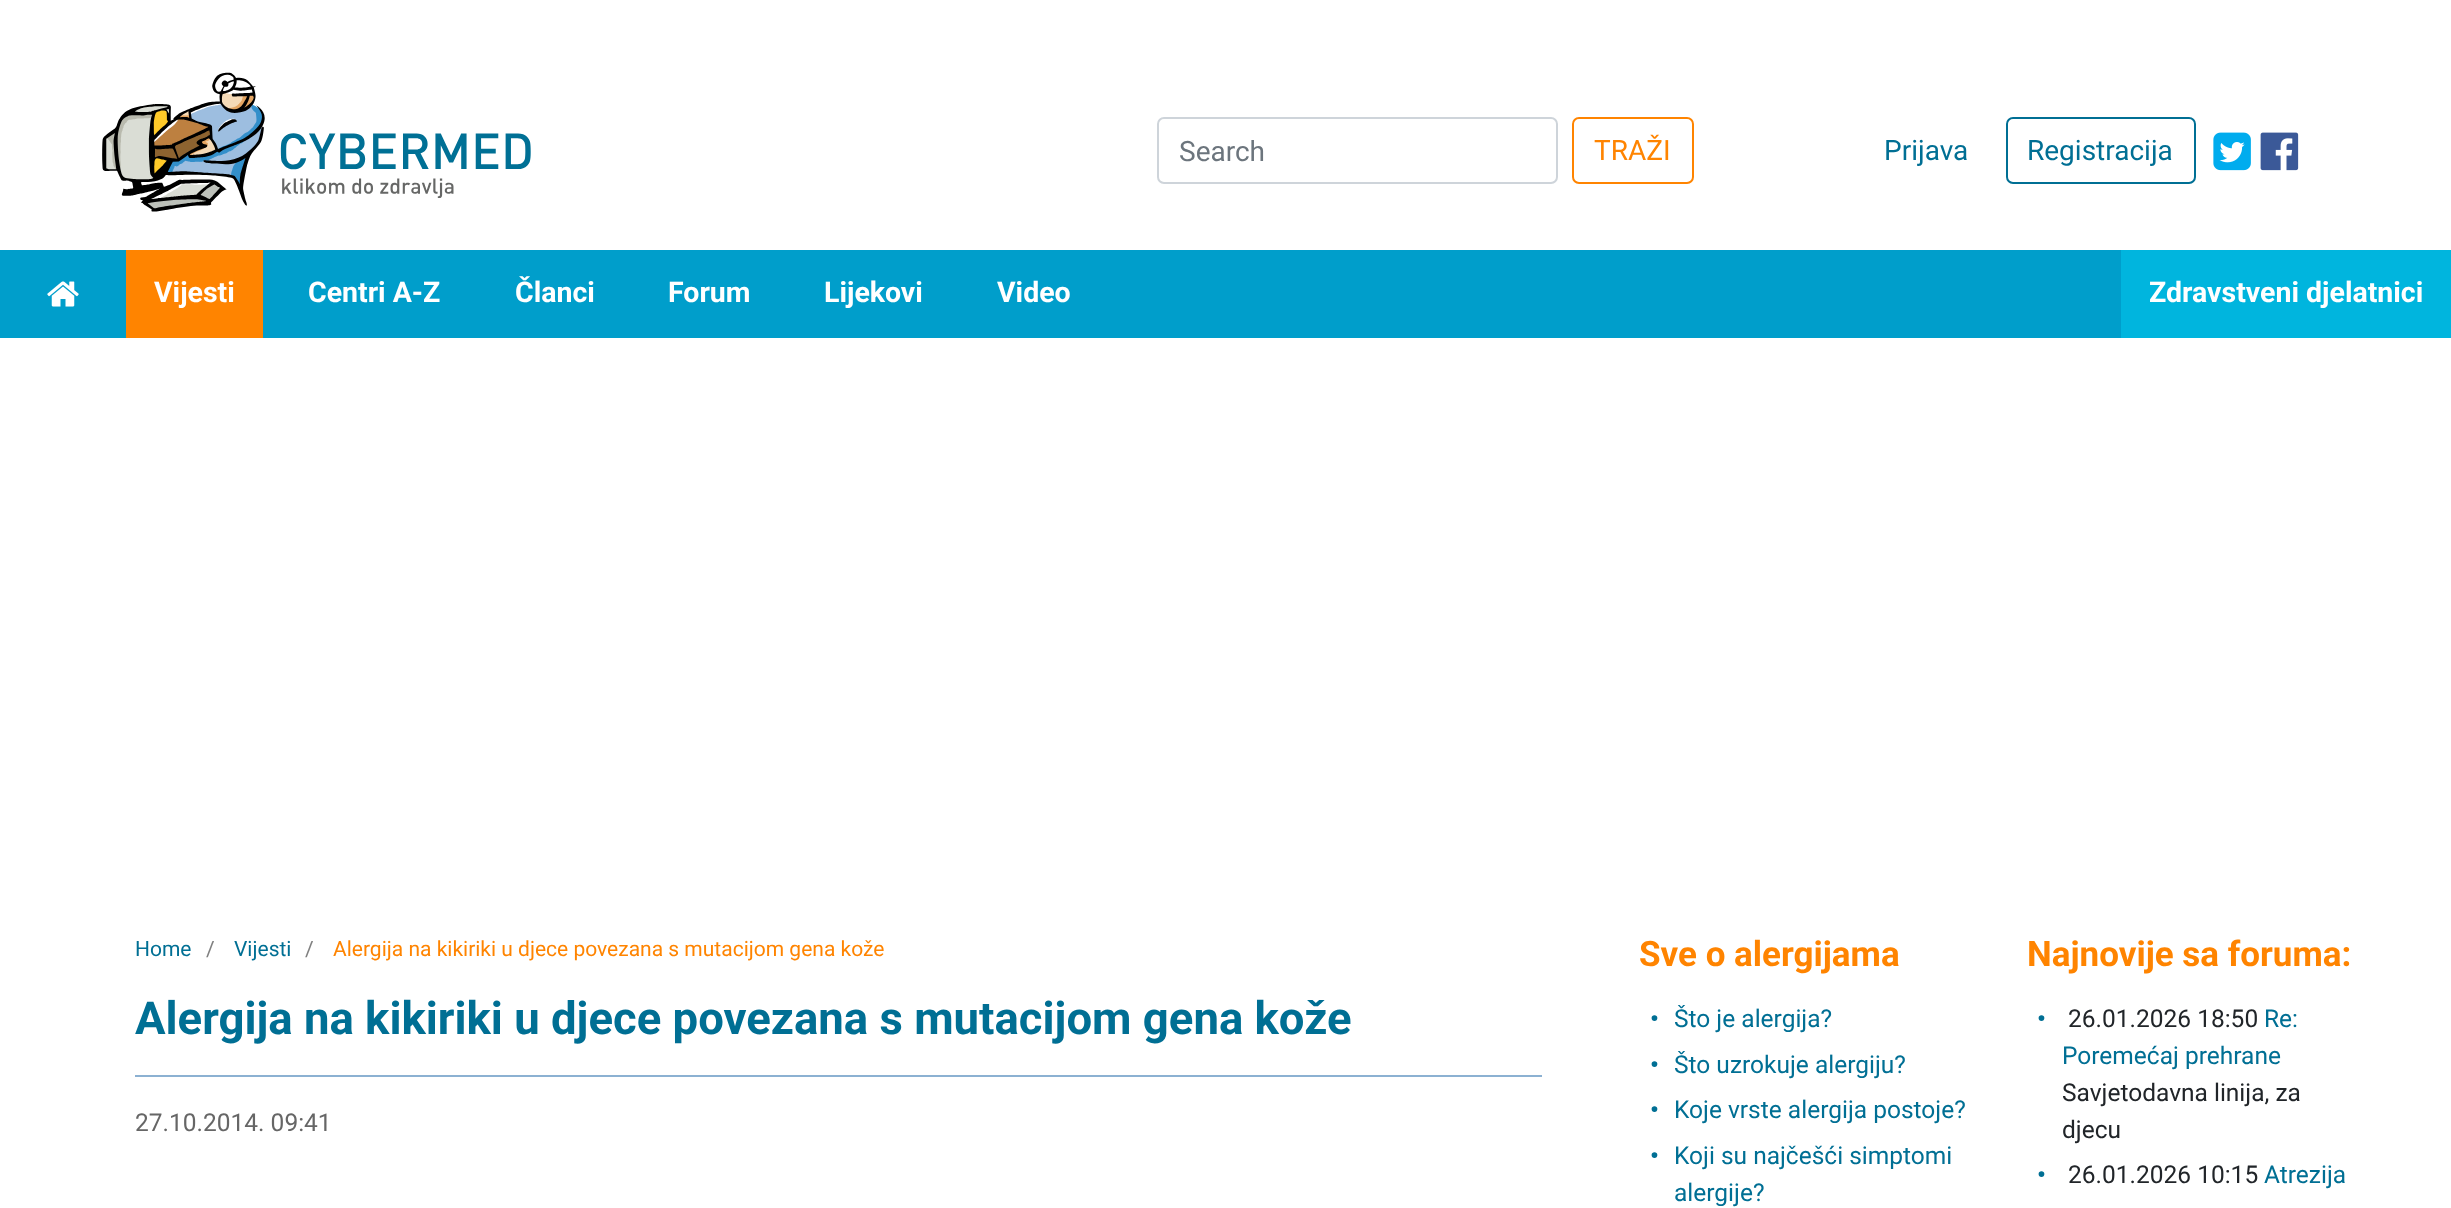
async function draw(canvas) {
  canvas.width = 2451;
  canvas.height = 1208;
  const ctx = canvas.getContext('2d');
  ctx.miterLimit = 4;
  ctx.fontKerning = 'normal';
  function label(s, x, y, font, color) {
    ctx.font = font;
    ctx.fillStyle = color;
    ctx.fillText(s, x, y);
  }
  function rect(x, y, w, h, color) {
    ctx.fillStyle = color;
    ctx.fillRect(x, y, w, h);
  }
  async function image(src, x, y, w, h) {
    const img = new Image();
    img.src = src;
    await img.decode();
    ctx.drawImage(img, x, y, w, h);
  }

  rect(0, 0, 2451, 1208, '#fff');
  await image('assets/img1.png', 102, 72, 429, 140);
  ctx.beginPath();
  ctx.roundRect(1158, 118, 399, 65, 6);
  ctx.strokeStyle = '#ced4da';
  ctx.lineWidth = 2;
  ctx.stroke();
  label('Search', 1179, 161, '28px Roboto', '#6c757d');
  ctx.beginPath();
  ctx.roundRect(1573, 118, 120, 65, 6);
  ctx.strokeStyle = '#ff8400';
  ctx.stroke();
  label('TRAŽI', 1594, 160, '28px Roboto', '#ff8400');
  label('Prijava', 1884, 160, '28px Roboto', '#006f94');
  ctx.beginPath();
  ctx.roundRect(2007, 118, 188, 65, 6);
  ctx.strokeStyle = '#006f94';
  ctx.stroke();
  label('Registracija', 2027, 160, '28px Roboto', '#006f94');
  await image('assets/img2.png', 2213, 132, 38, 39);
  await image('assets/img3.png', 2260, 132, 39, 39);
  rect(0, 250, 2121, 88, '#009ecb');
  await image('assets/img4.png', 47, 281, 32, 26);
  rect(126, 250, 137, 88, '#ff8400');
  label('Vijesti', 154, 302, 'bold 28.5px Roboto', '#fff');
  label('Centri A-Z', 308, 302, 'bold 28.5px Roboto', '#fff');
  label('Članci', 515, 302, 'bold 28.5px Roboto', '#fff');
  label('Forum', 668, 302, 'bold 28.5px Roboto', '#fff');
  label('Lijekovi', 824, 302, 'bold 28.5px Roboto', '#fff');
  label('Video', 997, 302, 'bold 28.5px Roboto', '#fff');
  rect(2121, 250, 330, 88, '#00b5de');
  label('Zdravstveni djelatnici', 2149, 302, 'bold 28.5px Roboto', '#fff');
  label('Home', 135, 956, '21px Roboto', '#006f94');
  label('/', 206, 956, '21px Roboto', '#808080');
  label('Vijesti', 234, 956, '21px Roboto', '#006f94');
  label('/', 305, 956, '21px Roboto', '#808080');
  label('Alergija na kikiriki u djece povezana s mutacijom gena kože', 333, 956, '21px Roboto', '#ff8400');
  label('Alergija na kikiriki u djece povezana s mutacijom gena kože', 135, 1034, 'bold 45.5px Roboto', '#006f94');
  rect(135, 1075, 1407, 2, '#8cb1d2');
  label('27.10.2014. 09:41', 135, 1131, '24.5px Roboto', '#666');
  label('Sve o alergijama', 1639, 966, 'bold 35px Roboto', '#ff8400');
  label('•', 1650, 1027, 'bold 24.5px Roboto', '#006f94');
  label('Što je alergija?', 1674, 1027, '24.5px Roboto', '#006f94');
  label('•', 1650, 1073, 'bold 24.5px Roboto', '#006f94');
  label('Što uzrokuje alergiju?', 1674, 1073, '24.5px Roboto', '#006f94');
  label('•', 1650, 1118, 'bold 24.5px Roboto', '#006f94');
  label('Koje vrste alergija postoje?', 1674, 1118, '24.5px Roboto', '#006f94');
  label('•', 1650, 1164, 'bold 24.5px Roboto', '#006f94');
  label('Koji su najčešći simptomi', 1674, 1164, '24.5px Roboto', '#006f94');
  label('alergije?', 1674, 1201, '24.5px Roboto', '#006f94');
  label('Najnovije sa foruma:', 2027, 966, 'bold 35px Roboto', '#ff8400');
  label('•', 2037, 1027, 'bold 24.5px Roboto', '#006f94');
  label('26.01.2026 18:50', 2068, 1027, '24.5px Roboto', '#212529');
  label('Re:', 2264, 1027, '24.5px Roboto', '#006f94');
  label('Poremećaj prehrane', 2062, 1064, '24.5px Roboto', '#006f94');
  label('Savjetodavna linija, za', 2062, 1101, '24.5px Roboto', '#212529');
  label('djecu', 2062, 1138, '24.5px Roboto', '#212529');
  label('•', 2037, 1183, 'bold 24.5px Roboto', '#006f94');
  label('26.01.2026 10:15', 2068, 1183, '24.5px Roboto', '#212529');
  label('Atrezija', 2264, 1183, '24.5px Roboto', '#006f94');
}

draw(document.querySelector('canvas'));
